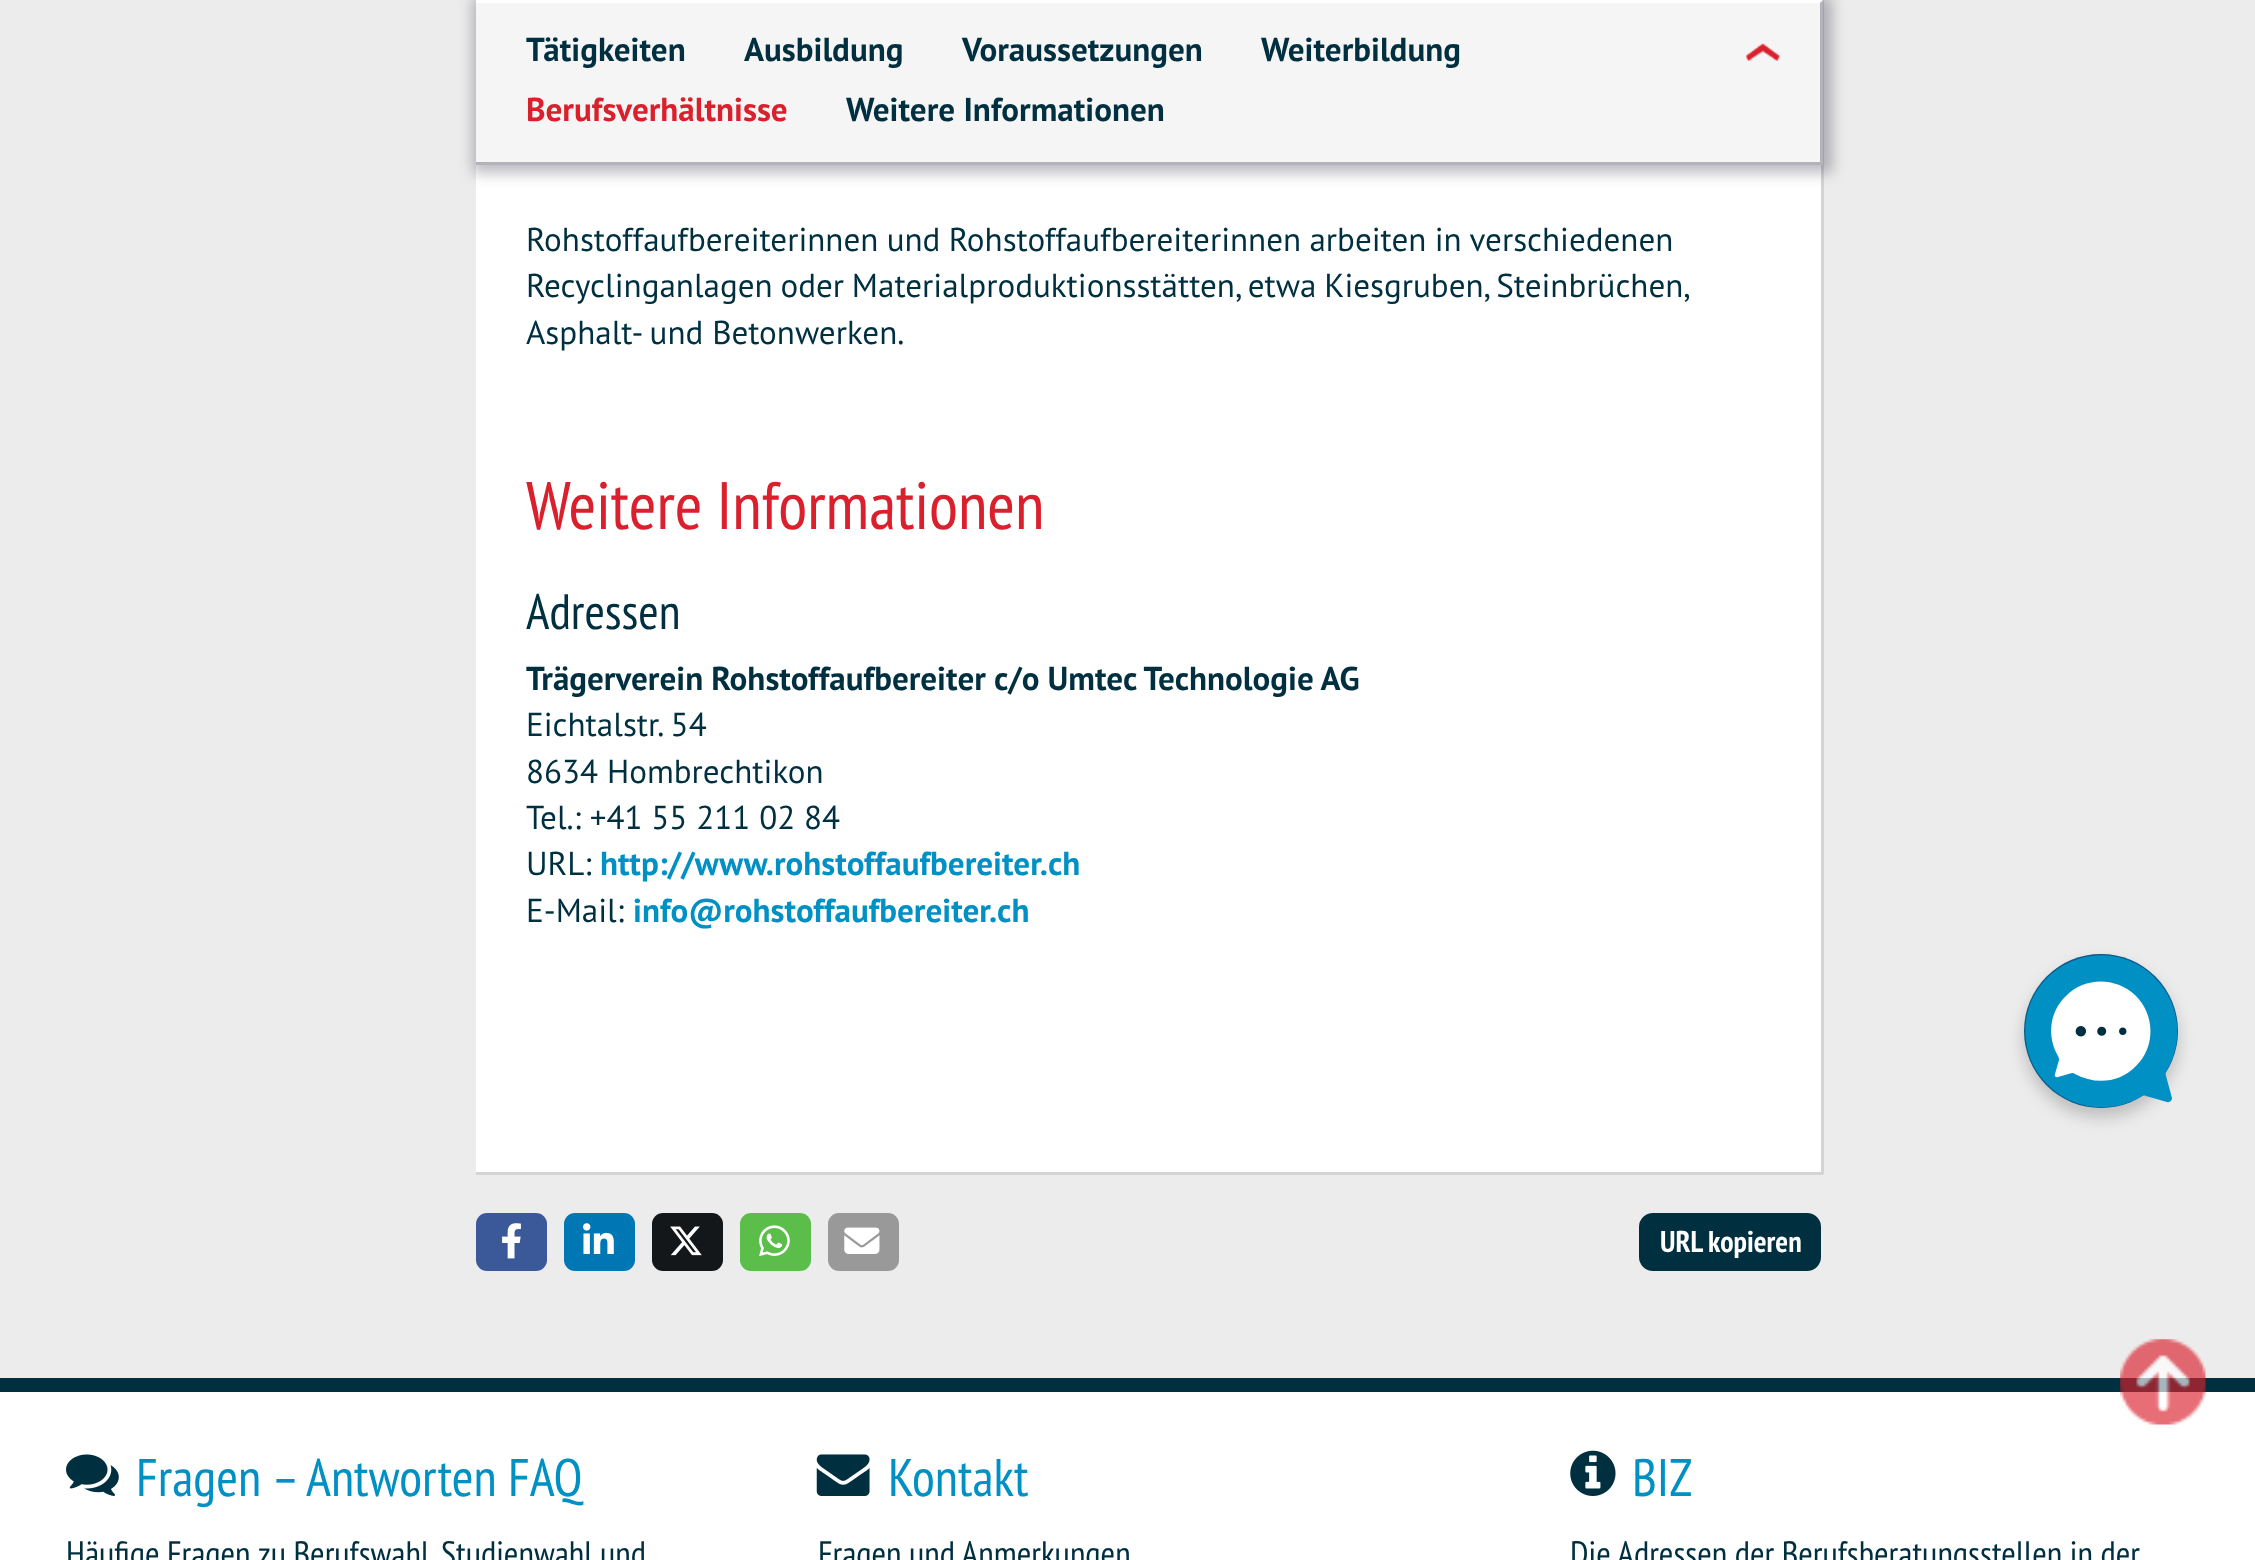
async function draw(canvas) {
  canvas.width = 2255;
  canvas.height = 1560;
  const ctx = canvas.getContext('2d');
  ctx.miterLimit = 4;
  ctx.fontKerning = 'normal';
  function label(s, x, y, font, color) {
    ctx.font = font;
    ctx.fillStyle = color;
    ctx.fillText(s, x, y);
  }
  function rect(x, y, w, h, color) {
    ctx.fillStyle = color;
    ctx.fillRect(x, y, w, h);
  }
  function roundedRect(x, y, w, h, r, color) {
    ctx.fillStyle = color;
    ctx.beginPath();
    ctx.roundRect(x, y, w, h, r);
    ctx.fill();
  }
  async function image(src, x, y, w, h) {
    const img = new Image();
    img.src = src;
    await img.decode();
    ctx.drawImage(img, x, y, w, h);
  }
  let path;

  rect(0, 0, 2255, 1560, '#ececec');
  rect(476, 165, 1345, 1007, '#fff');
  rect(1821, 0, 3, 1174, '#d4d4d4');
  ctx.fillStyle = '#1919324d';
  ctx.filter = 'blur(7px)';
  ctx.beginPath();
  ctx.rect(473, -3, 1359, 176);
  ctx.fill();
  ctx.filter = 'none';
  rect(476, 0, 1347, 165, '#f5f5f5');
  ctx.fillStyle = '#fff';
  path = new Path2D('M476 0H1823L1820 3H476Z');
  ctx.fill(path);
  ctx.fillStyle = '#1919324d';
  path = new Path2D('M1823 0V165L1820 162V3Z');
  ctx.fill(path);
  path = new Path2D('M1823 165H476V162H1820Z');
  ctx.fill(path);
  label('Tätigkeiten', 526, 61, 'bold 33.1px PT Sans', '#003040');
  label('Ausbildung', 744, 61, 'bold 33.1px PT Sans', '#003040');
  label('Voraussetzungen', 962, 61, 'bold 33.1px PT Sans', '#003040');
  label('Weiterbildung', 1261, 61, 'bold 33.1px PT Sans', '#003040');
  label('Berufsverhältnisse', 526, 121, 'bold 33.1px PT Sans', '#da202c');
  label('Weitere Informationen', 846, 121, 'bold 33.1px PT Sans', '#003040');
  await image('assets/img1.png', 1746, 43, 34, 18);
  rect(476, 1172, 1347, 3, '#d4d4d4');
  ctx.wordSpacing = '-0.5px';
  label('Rohstoffaufbereiterinnen und Rohstoffaufbereiterinnen arbeiten in verschiedenen', 526, 251, '33.1px PT Sans', '#003040');
  ctx.wordSpacing = '-1px';
  label('Recyclinganlagen oder Materialproduktionsstätten, etwa Kiesgruben, Steinbrüchen,', 526, 297, '33.1px PT Sans', '#003040');
  ctx.wordSpacing = '0px';
  label('Asphalt- und Betonwerken.', 526, 344, '33.1px PT Sans', '#003040');
  label('Weitere Informationen', 526, 529, '67px PT Sans Narrow', '#da202c');
  label('Adressen', 526, 629, '49.5px PT Sans Narrow', '#003040');
  ctx.wordSpacing = '-0.25px';
  label('Trägerverein Rohstoffaufbereiter c/o Umtec Technologie AG', 526, 690, 'bold 33.1px PT Sans', '#003040');
  ctx.wordSpacing = '0px';
  label('Eichtalstr. 54', 526, 736, '33.1px PT Sans', '#003040');
  label('8634 Hombrechtikon', 526, 783, '33.1px PT Sans', '#003040');
  label('Tel.: +41 55 211 02 84', 526, 829, '33.1px PT Sans', '#003040');
  label('URL:', 526, 875, '33.1px PT Sans', '#003040');
  label('http://www.rohstoffaufbereiter.ch', 600, 875, 'bold 33.1px PT Sans', '#0090c4');
  label('E-Mail:', 526, 922, '33.1px PT Sans', '#003040');
  label('info@rohstoffaufbereiter.ch', 633, 922, 'bold 33.1px PT Sans', '#0090c4');
  roundedRect(476, 1213, 71, 58, 11, '#3b5998');
  await image('assets/img2.png', 502, 1223, 19, 36);
  roundedRect(564, 1213, 71, 58, 11, '#0077b5');
  await image('assets/img3.png', 583, 1223, 31, 31);
  roundedRect(652, 1213, 71, 58, 11, '#14171a');
  await image('assets/img4.png', 670, 1226, 32, 30);
  roundedRect(740, 1213, 71, 58, 11, '#5cbe4a');
  await image('assets/img5.png', 759, 1225, 31, 32);
  roundedRect(828, 1213, 71, 58, 11, '#999');
  await image('assets/img6.png', 844, 1227, 36, 27);
  ctx.fillStyle = '#003040';
  ctx.beginPath();
  ctx.roundRect(1640.5, 1214.5, 179, 55, 12.5);
  ctx.fill();
  ctx.strokeStyle = '#003040';
  ctx.lineWidth = 3;
  ctx.stroke();
  label('URL kopieren', 1660, 1252, 'bold 30px PT Sans Narrow', '#fff');
  rect(0, 1378, 2255, 14, '#003040');
  rect(0, 1392, 2255, 168, '#fff');
  await image('assets/img7.png', 66, 1454, 53, 42);
  label('Fragen – Antworten FAQ', 136, 1496, '52.75px PT Sans Narrow', '#0090c4');
  label('Häufige Fragen zu Berufswahl, Studienwahl und', 66, 1566, '35.25px PT Sans Narrow', '#003040');
  await image('assets/img8.png', 816, 1454, 54, 42);
  label('Kontakt', 888, 1496, '52.75px PT Sans Narrow', '#0090c4');
  label('Fragen und Anmerkungen', 818, 1566, '35.25px PT Sans Narrow', '#003040');
  await image('assets/img9.png', 1570, 1450, 46, 46);
  label('BIZ', 1632, 1496, '52.75px PT Sans Narrow', '#0090c4');
  label('Die Adressen der Berufsberatungsstellen in der', 1570, 1566, '35.25px PT Sans Narrow', '#003040');
  ctx.fillStyle = '#00000033';
  ctx.filter = 'blur(8px)';
  ctx.beginPath();
  ctx.roundRect(2024, 963, 154, 154, 77);
  ctx.fill();
  ctx.filter = 'none';
  ctx.fillStyle = '#085a8a';
  ctx.beginPath();
  ctx.arc(2101, 1031, 77, 0, 2 * Math.PI);
  ctx.fill();
  ctx.fillStyle = '#0090c4';
  path = new Path2D('M2155 978C2125 947 2075 948 2045 980C2018 1009 2019 1056 2047 1084C2072 1110 2111 1114 2140 1097C2142 1096 2144 1095 2146 1096L2167 1102C2170 1103 2172 1100 2172 1098L2166 1076C2165 1074 2166 1072 2167 1070C2184 1041 2180 1003 2155 978Z');
  ctx.fill(path);
  ctx.fillStyle = '#fff';
  path = new Path2D('M2136 1066C2156 1047 2155 1014 2135 995C2115 977 2085 977 2066 996C2049 1012 2047 1037 2058 1056C2059 1058 2059 1059 2059 1060L2055 1074C2054 1076 2056 1078 2058 1077L2072 1073C2073 1073 2074 1073 2075 1074C2095 1085 2120 1083 2136 1066Z');
  ctx.fill(path);
  await image('assets/img10.png', 2075, 1026, 52, 11);
  await image('assets/img11.png', 2120, 1339, 86, 86);
}

draw(document.querySelector('canvas'));
